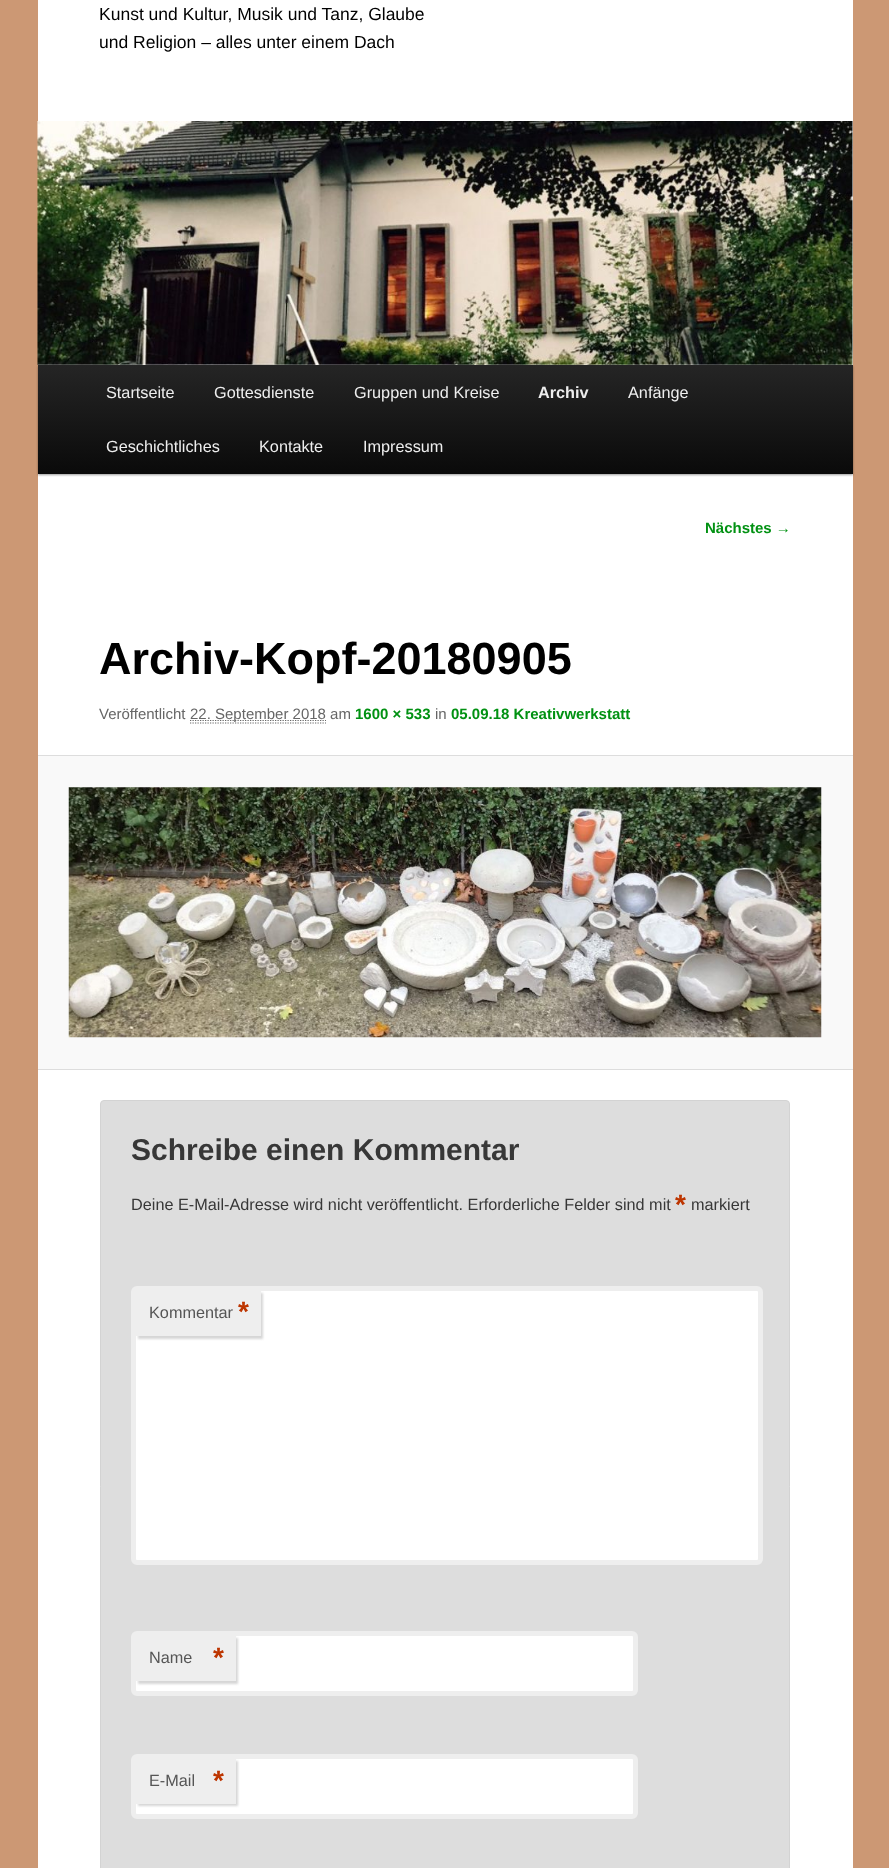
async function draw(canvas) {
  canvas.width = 889;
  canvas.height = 1868;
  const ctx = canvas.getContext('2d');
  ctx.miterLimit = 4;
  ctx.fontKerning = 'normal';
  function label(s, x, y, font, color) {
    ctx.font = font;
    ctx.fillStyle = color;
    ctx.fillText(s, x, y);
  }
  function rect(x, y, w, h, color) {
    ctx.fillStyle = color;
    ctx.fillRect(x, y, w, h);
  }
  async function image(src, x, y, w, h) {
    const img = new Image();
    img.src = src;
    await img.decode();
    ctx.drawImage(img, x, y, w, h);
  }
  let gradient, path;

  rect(0, 0, 889, 1868, '#cc9874');
  rect(38, 0, 815, 1868, '#fff');
  label('Kunst und Kultur, Musik und Tanz, Glaube', 99, 20, '17.5px Liberation Sans', '#000');
  label('und Religion – alles unter einem Dach', 99, 48, '17.5px Liberation Sans', '#000');
  ctx.fillStyle = '#00000066';
  ctx.filter = 'blur(1px)';
  ctx.beginPath();
  ctx.rect(38, 366, 815, 109);
  ctx.fill();
  ctx.filter = 'none';
  await image('assets/img1.png', 37, 121, 816, 244);
  gradient = ctx.createLinearGradient(445, 365, 445, 474);
  gradient.addColorStop(0, '#252525');
  gradient.addColorStop(1, '#0a0a0a');
  ctx.fillStyle = gradient;
  ctx.fillRect(38, 365, 815, 109);
  label('Startseite', 106, 398, '16.25px Liberation Sans', '#eee');
  label('Gottesdienste', 214, 398, '16.25px Liberation Sans', '#eee');
  label('Gruppen und Kreise', 354, 398, '16.25px Liberation Sans', '#eee');
  label('Archiv', 538, 398, 'bold 16.25px Liberation Sans', '#eee');
  label('Anfänge', 628, 398, '16.25px Liberation Sans', '#eee');
  label('Geschichtliches', 106, 452, '16.25px Liberation Sans', '#eee');
  label('Kontakte', 259, 452, '16.25px Liberation Sans', '#eee');
  label('Impressum', 363, 452, '16.25px Liberation Sans', '#eee');
  label('Nächstes →', 705, 533, 'bold 15px Liberation Sans', '#019112');
  label('Archiv-Kopf-20180905', 99, 674, 'bold 45px Liberation Sans', '#000');
  label('Veröffentlicht', 99, 719, '15px Liberation Sans', '#666');
  path = new Path2D('M190 723H326');
  ctx.strokeStyle = '#666';
  ctx.lineWidth = 1.2;
  ctx.setLineDash([1.25, 1.25]);
  ctx.stroke(path);
  path = new Path2D('M190 720.5H326');
  ctx.stroke(path);
  label('22. September 2018 am', 190, 719, '15px Liberation Sans', '#666');
  label('1600 × 533', 355, 719, 'bold 15px Liberation Sans', '#019112');
  label('in', 435, 719, '15px Liberation Sans', '#666');
  label('05.09.18 Kreativwerkstatt', 451, 719, 'bold 15px Liberation Sans', '#019112');
  rect(38, 756, 815, 313, '#f9f9f9');
  rect(38, 755, 815, 1, '#ddd');
  rect(38, 1069, 815, 1, '#ddd');
  await image('assets/img2.png', 68, 787, 754, 251);
  ctx.beginPath();
  ctx.roundRect(100.5, 1100.5, 689, 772, 3.5);
  ctx.fill();
  ctx.strokeStyle = '#d3d3d3';
  ctx.lineWidth = 1;
  ctx.setLineDash([]);
  ctx.stroke();
  label('Schreibe einen Kommentar', 131, 1160, 'bold 30px Liberation Sans', '#373737');
  label('Deine E-Mail-Adresse wird nicht veröffentlicht. Erforderliche Felder sind mit', 131, 1210, '16.25px Liberation Sans', '#373737');
  label('*', 675, 1214, 'bold 28px Liberation Sans', '#bd3500');
  label('markiert', 691, 1210, '16.25px Liberation Sans', '#373737');
  ctx.fillStyle = '#fff';
  ctx.beginPath();
  ctx.roundRect(133.5, 1288.5, 627, 274, 3.5);
  ctx.fill();
  ctx.strokeStyle = '#eee';
  ctx.lineWidth = 5;
  ctx.stroke();
  ctx.fillStyle = '#cccccccc';
  ctx.filter = 'blur(1px)';
  ctx.beginPath();
  ctx.rect(138, 1293, 125, 46);
  ctx.fill();
  ctx.filter = 'none';
  rect(136, 1291, 125, 45, '#eee');
  label('Kommentar', 149, 1318, '16.25px Liberation Sans', '#555');
  label('*', 238, 1321, 'bold 28px Liberation Sans', '#bd3500');
  ctx.fillStyle = '#fff';
  ctx.beginPath();
  ctx.roundRect(133.5, 1633.5, 502, 60, 3.5);
  ctx.fill();
  ctx.stroke();
  ctx.fillStyle = '#cccccccc';
  ctx.filter = 'blur(1px)';
  ctx.beginPath();
  ctx.rect(138, 1638, 100, 46);
  ctx.fill();
  ctx.filter = 'none';
  rect(136, 1636, 100, 45, '#eee');
  label('Name', 149, 1663, '16.25px Liberation Sans', '#555');
  label('*', 213, 1667, 'bold 28px Liberation Sans', '#bd3500');
  ctx.fillStyle = '#fff';
  ctx.beginPath();
  ctx.roundRect(133.5, 1756.5, 502, 60, 3.5);
  ctx.fill();
  ctx.stroke();
  ctx.fillStyle = '#cccccccc';
  ctx.filter = 'blur(1px)';
  ctx.beginPath();
  ctx.rect(138, 1761, 100, 45);
  ctx.fill();
  ctx.filter = 'none';
  rect(136, 1759, 100, 45, '#eee');
  label('E-Mail', 149, 1786, '16.25px Liberation Sans', '#555');
  label('*', 213, 1790, 'bold 28px Liberation Sans', '#bd3500');
}

draw(document.querySelector('canvas'));
